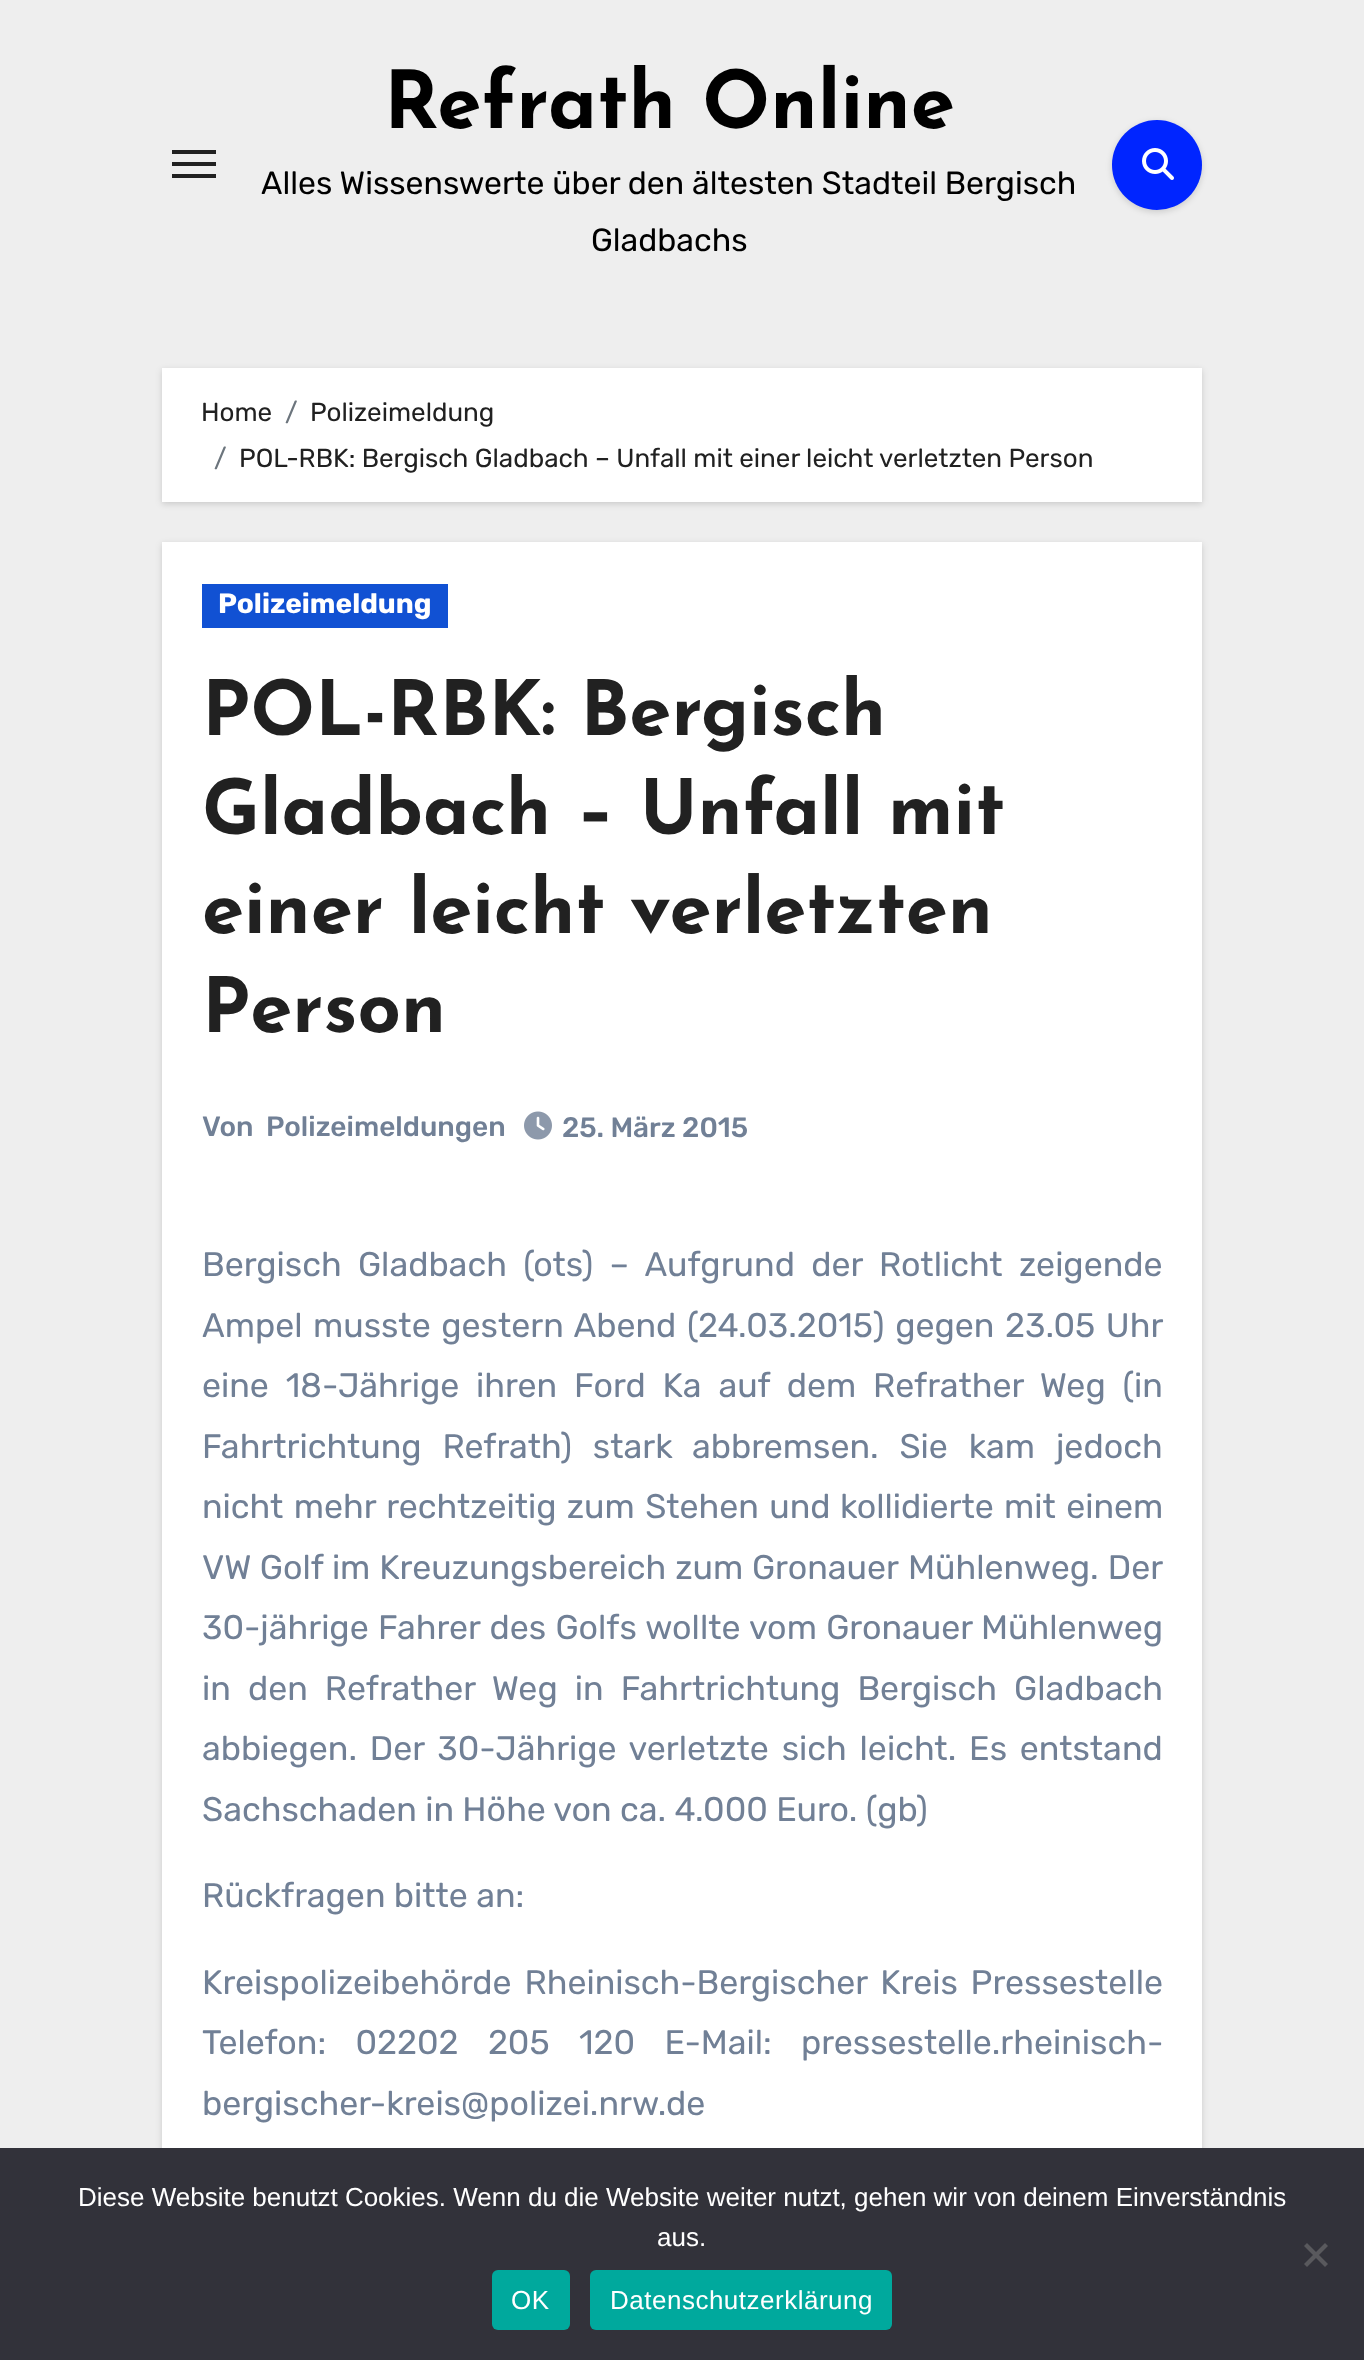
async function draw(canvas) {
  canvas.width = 1364;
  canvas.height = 2360;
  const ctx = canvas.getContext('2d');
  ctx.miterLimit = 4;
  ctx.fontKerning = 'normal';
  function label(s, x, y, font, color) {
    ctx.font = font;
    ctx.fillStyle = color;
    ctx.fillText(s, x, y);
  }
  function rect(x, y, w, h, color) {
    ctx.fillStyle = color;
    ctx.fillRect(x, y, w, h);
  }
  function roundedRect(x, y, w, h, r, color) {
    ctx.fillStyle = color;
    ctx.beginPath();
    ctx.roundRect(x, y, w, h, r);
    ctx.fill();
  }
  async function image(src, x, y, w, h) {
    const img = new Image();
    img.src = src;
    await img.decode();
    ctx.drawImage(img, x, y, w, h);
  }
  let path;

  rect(0, 0, 1364, 2360, '#eee');
  rect(172, 150, 44, 4, '#212121');
  rect(172, 162, 44, 4, '#212121');
  rect(172, 174, 44, 4, '#212121');
  label('Refrath Online', 384, 128, 'bold 80px Josefin Sans', '#000');
  label('Alles Wissenswerte über den ältesten Stadteil Bergisch', 261, 194, '300 32px Rubik', '#000');
  label('Gladbachs', 591, 251, '300 32px Rubik', '#000');
  ctx.fillStyle = '#00000026';
  ctx.filter = 'blur(3px)';
  ctx.beginPath();
  ctx.roundRect(1112, 122, 90, 90, 45);
  ctx.fill();
  ctx.filter = 'none';
  ctx.fillStyle = '#0025ff';
  ctx.beginPath();
  ctx.arc(1157, 165, 45, 0, 2 * Math.PI);
  ctx.fill();
  await image('assets/img1.png', 1142, 148, 32, 32);
  ctx.fillStyle = '#00000026';
  ctx.filter = 'blur(3px)';
  ctx.beginPath();
  ctx.rect(162, 370, 1040, 134);
  ctx.fill();
  ctx.filter = 'none';
  rect(162, 368, 1040, 134, '#fff');
  label('Home', 201, 421, '300 26px Rubik', '#212121');
  label('/', 285, 421, '300 26px Rubik', '#6c757d');
  label('Polizeimeldung', 310, 421, '300 26px Rubik', '#212121');
  label('/', 214, 467, '300 26px Rubik', '#6c757d');
  label('POL-RBK: Bergisch Gladbach – Unfall mit einer leicht verletzten Person', 239, 467, '300 26px Rubik', '#212121');
  ctx.fillStyle = '#00000026';
  ctx.filter = 'blur(3px)';
  ctx.beginPath();
  ctx.rect(162, 544, 1040, 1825);
  ctx.fill();
  ctx.filter = 'none';
  rect(162, 542, 1040, 1606, '#fff');
  rect(202, 584, 246, 44, '#1151d3');
  label('Polizeimeldung', 218, 613, 'bold 28px Rubik', '#fff');
  label('POL-RBK: Bergisch', 202, 735, 'bold 76px Josefin Sans', '#212121');
  label('Gladbach – Unfall mit', 202, 834, 'bold 76px Josefin Sans', '#212121');
  label('einer leicht verletzten', 202, 933, 'bold 76px Josefin Sans', '#212121');
  label('Person', 202, 1032, 'bold 76px Josefin Sans', '#212121');
  label('Von', 202, 1136, '500 28px Rubik', '#718096');
  label('Polizeimeldungen', 266, 1136, '500 28px Rubik', '#718096');
  await image('assets/img2.png', 524, 1111, 28, 29);
  label('25. März 2015', 562, 1137, '500 28px Rubik', '#718096');
  ctx.wordSpacing = '8px';
  label('Bergisch Gladbach (ots) – Aufgrund der Rotlicht zeigende', 202, 1276, '300 34px Rubik', '#718096');
  ctx.wordSpacing = '0px';
  label('Ampel', 202, 1337, '300 34px Rubik', '#718096');
  ctx.wordSpacing = '2.25px';
  label('musste gestern Abend (24.03.2015) gegen 23.05 Uhr', 313, 1337, '300 34px Rubik', '#718096');
  ctx.wordSpacing = '8.5px';
  label('eine 18-Jährige', 202, 1397, '300 34px Rubik', '#718096');
  label('ihren Ford Ka auf dem Refrather Weg (in', 476, 1397, '300 34px Rubik', '#718096');
  ctx.wordSpacing = '12.5px';
  label('Fahrtrichtung Refrath) stark', 202, 1458, '300 34px Rubik', '#718096');
  label('abbremsen. Sie kam jedoch', 692, 1458, '300 34px Rubik', '#718096');
  ctx.wordSpacing = '2px';
  label('nicht mehr rechtzeitig zum Stehen und', 202, 1518, '300 34px Rubik', '#718096');
  label('kollidierte mit einem', 840, 1518, '300 34px Rubik', '#718096');
  ctx.wordSpacing = '0.5px';
  label('VW Golf im Kreuzungsbereich zum Gronauer', 202, 1579, '300 34px Rubik', '#718096');
  ctx.wordSpacing = '1px';
  label('Mühlenweg. Der', 908, 1579, '300 34px Rubik', '#718096');
  label('30-jährige Fahrer des Golfs wollte vom Gronauer', 202, 1639, '300 34px Rubik', '#718096');
  ctx.wordSpacing = '0px';
  label('Mühlenweg', 981, 1639, '300 34px Rubik', '#718096');
  ctx.wordSpacing = '8.75px';
  label('in den Refrather Weg in Fahrtrichtung Bergisch Gladbach', 202, 1700, '300 34px Rubik', '#718096');
  ctx.wordSpacing = '4.5px';
  label('abbiegen. Der 30-Jährige verletzte sich leicht. Es entstand', 202, 1760, '300 34px Rubik', '#718096');
  ctx.wordSpacing = '0px';
  label('Sachschaden in Höhe von ca. 4.000 Euro. (gb)', 202, 1821, '300 34px Rubik', '#718096');
  label('Rückfragen bitte an:', 202, 1907, '300 34px Rubik', '#718096');
  ctx.wordSpacing = '4.5px';
  label('Kreispolizeibehörde Rheinisch-Bergischer Kreis Pressestelle', 202, 1994, '300 34px Rubik', '#718096');
  ctx.wordSpacing = '21px';
  label('Telefon: 02202 205 120 E-Mail: pressestelle.rheinisch-', 202, 2054, '300 34px Rubik', '#718096');
  ctx.wordSpacing = '0px';
  label('bergischer-kreis@polizei.nrw.de', 202, 2115, '300 34px Rubik', '#718096');
  rect(0, 2148, 1364, 212, '#32323a');
  label('Diese Website benutzt Cookies. Wenn du die Website weiter nutzt, gehen wir von deinem Einverständnis', 78, 2206, '26px Liberation Sans', '#fff');
  label('aus.', 657, 2246, '26px Liberation Sans', '#fff');
  ctx.fillStyle = '#59595d';
  path = new Path2D('M1325 2243L1328 2246L1307 2267L1304 2264Z');
  ctx.fill(path);
  path = new Path2D('M1304 2246L1307 2243L1328 2264L1325 2267Z');
  ctx.fill(path);
  roundedRect(492, 2270, 78, 60, 6, '#00a99d');
  ctx.letterSpacing = '0.5px';
  label('OK', 511, 2309, '26px Liberation Sans', '#fff');
  roundedRect(590, 2270, 302, 60, 6, '#00a99d');
  label('Datenschutzerklärung', 610, 2309, '26px Liberation Sans', '#fff');
}

draw(document.querySelector('canvas'));
